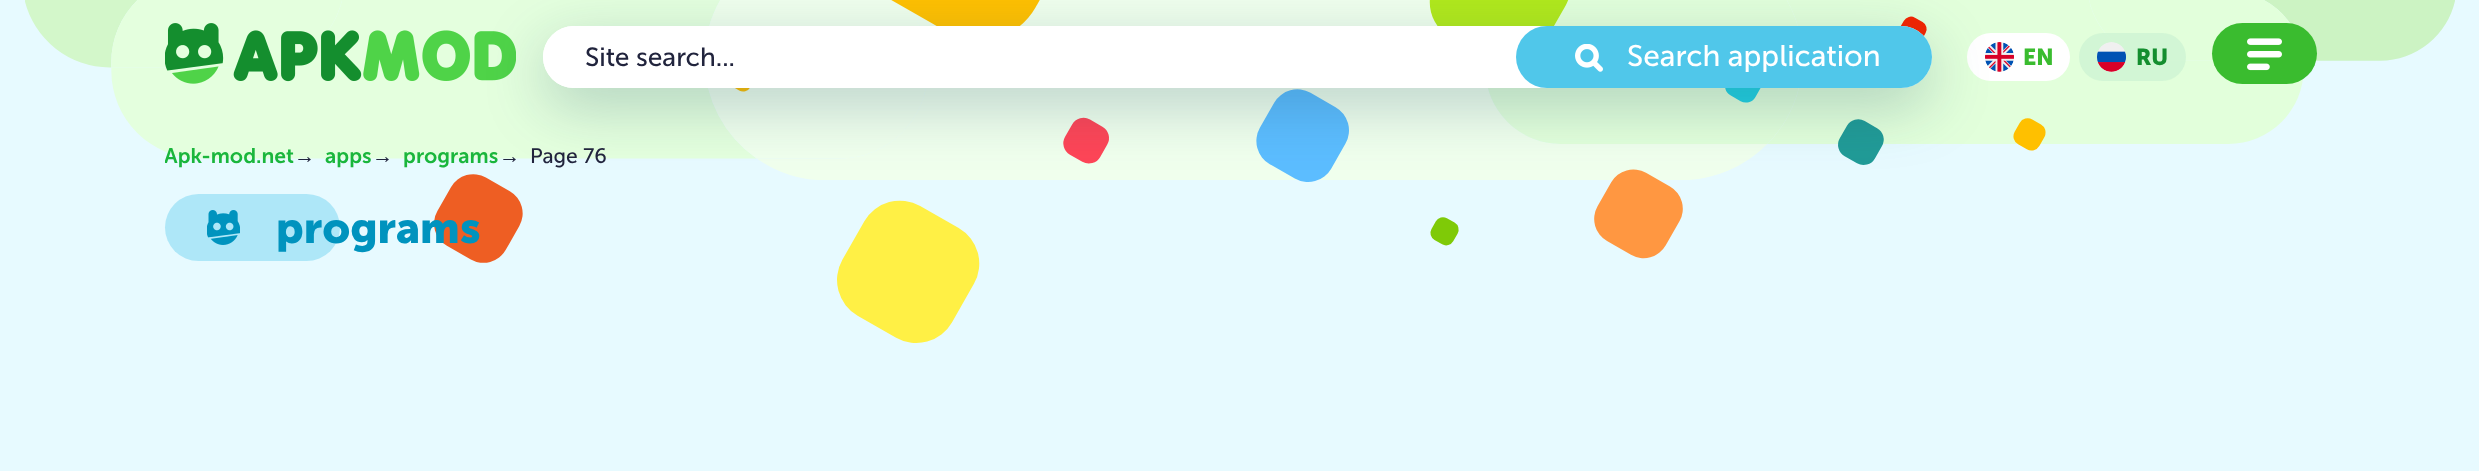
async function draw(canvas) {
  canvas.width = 2479;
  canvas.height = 471;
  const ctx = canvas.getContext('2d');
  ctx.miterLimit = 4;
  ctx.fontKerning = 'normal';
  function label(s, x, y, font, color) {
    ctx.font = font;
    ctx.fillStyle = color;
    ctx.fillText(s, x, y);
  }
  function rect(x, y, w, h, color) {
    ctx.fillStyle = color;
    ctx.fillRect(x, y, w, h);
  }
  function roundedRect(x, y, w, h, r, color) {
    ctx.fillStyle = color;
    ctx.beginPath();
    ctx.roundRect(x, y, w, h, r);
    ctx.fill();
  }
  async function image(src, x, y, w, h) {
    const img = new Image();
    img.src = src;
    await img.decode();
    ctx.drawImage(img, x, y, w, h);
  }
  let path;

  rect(0, 0, 2479, 471, '#e7faff');
  await image('assets/img1.png', 25, 0, 2430, 343);
  await image('assets/img2.png', 165, 23, 351, 61);
  roundedRect(543, 26, 1389, 62, 31, '#fff');
  roundedRect(1967, 33, 103, 48, 24, '#fff');
  await image('assets/img4.png', 1985, 42, 29, 30);
  ctx.save();
  path = new Path2D('M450 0H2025V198H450ZM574 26H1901C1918 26 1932 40 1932 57C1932 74 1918 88 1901 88H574C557 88 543 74 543 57C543 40 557 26 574 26Z');
  ctx.clip(path, 'evenodd');
  ctx.fillStyle = '#0f3f5b40';
  ctx.filter = 'blur(30.5px)';
  ctx.beginPath();
  ctx.roundRect(543, 44, 1389, 61, 30.5);
  ctx.fill();
  ctx.filter = 'none';
  ctx.restore();
  roundedRect(543, 26, 973, 62, 31, '#fff');
  label('Site search...', 585, 66, '26.25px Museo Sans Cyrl', '#21243d');
  roundedRect(1516, 26, 416, 62, 31, '#50c7ea');
  await image('assets/img3.png', 1575, 44, 28, 28);
  label('Search application', 1627, 66, '29.75px Museo Sans Cyrl', '#fff');
  label('EN', 2023, 65, 'bold 23px Museo Sans Cyrl', '#3abc2f');
  roundedRect(2079, 33, 107, 48, 24, '#d0f5d4e6');
  await image('assets/img5.png', 2097, 42, 29, 30);
  label('RU', 2136, 65, 'bold 23px Museo Sans Cyrl', '#148e2f');
  roundedRect(2212, 23, 105, 61, 30.5, '#3abc2f');
  await image('assets/img6.png', 2247, 38, 35, 33);
  ctx.save();
  ctx.beginPath();
  ctx.rect(165, 145, 2152, 51);
  ctx.clip();
  label('Apk-mod.net', 164, 163, '600 21px Museo Sans Cyrl', '#1ab63c');
  ctx.restore();
  label('→', 294, 163, '21px Liberation Serif', '#21243d');
  label('apps', 325, 163, '600 21px Museo Sans Cyrl', '#1ab63c');
  label('→', 372, 163, '21px Liberation Serif', '#21243d');
  label('programs', 403, 163, '600 21px Museo Sans Cyrl', '#1ab63c');
  label('→', 499, 163, '21px Liberation Serif', '#21243d');
  label('Page 76', 530, 163, '21px Museo Sans Cyrl', '#21243d');
  roundedRect(165, 194, 175, 67, 33.5, '#aee7f8');
  await image('assets/img7.png', 207, 210, 33, 35);
  label('programs', 276, 243, 'bold 43.75px Museo Sans Cyrl', '#0093be');
}

draw(document.querySelector('canvas'));
